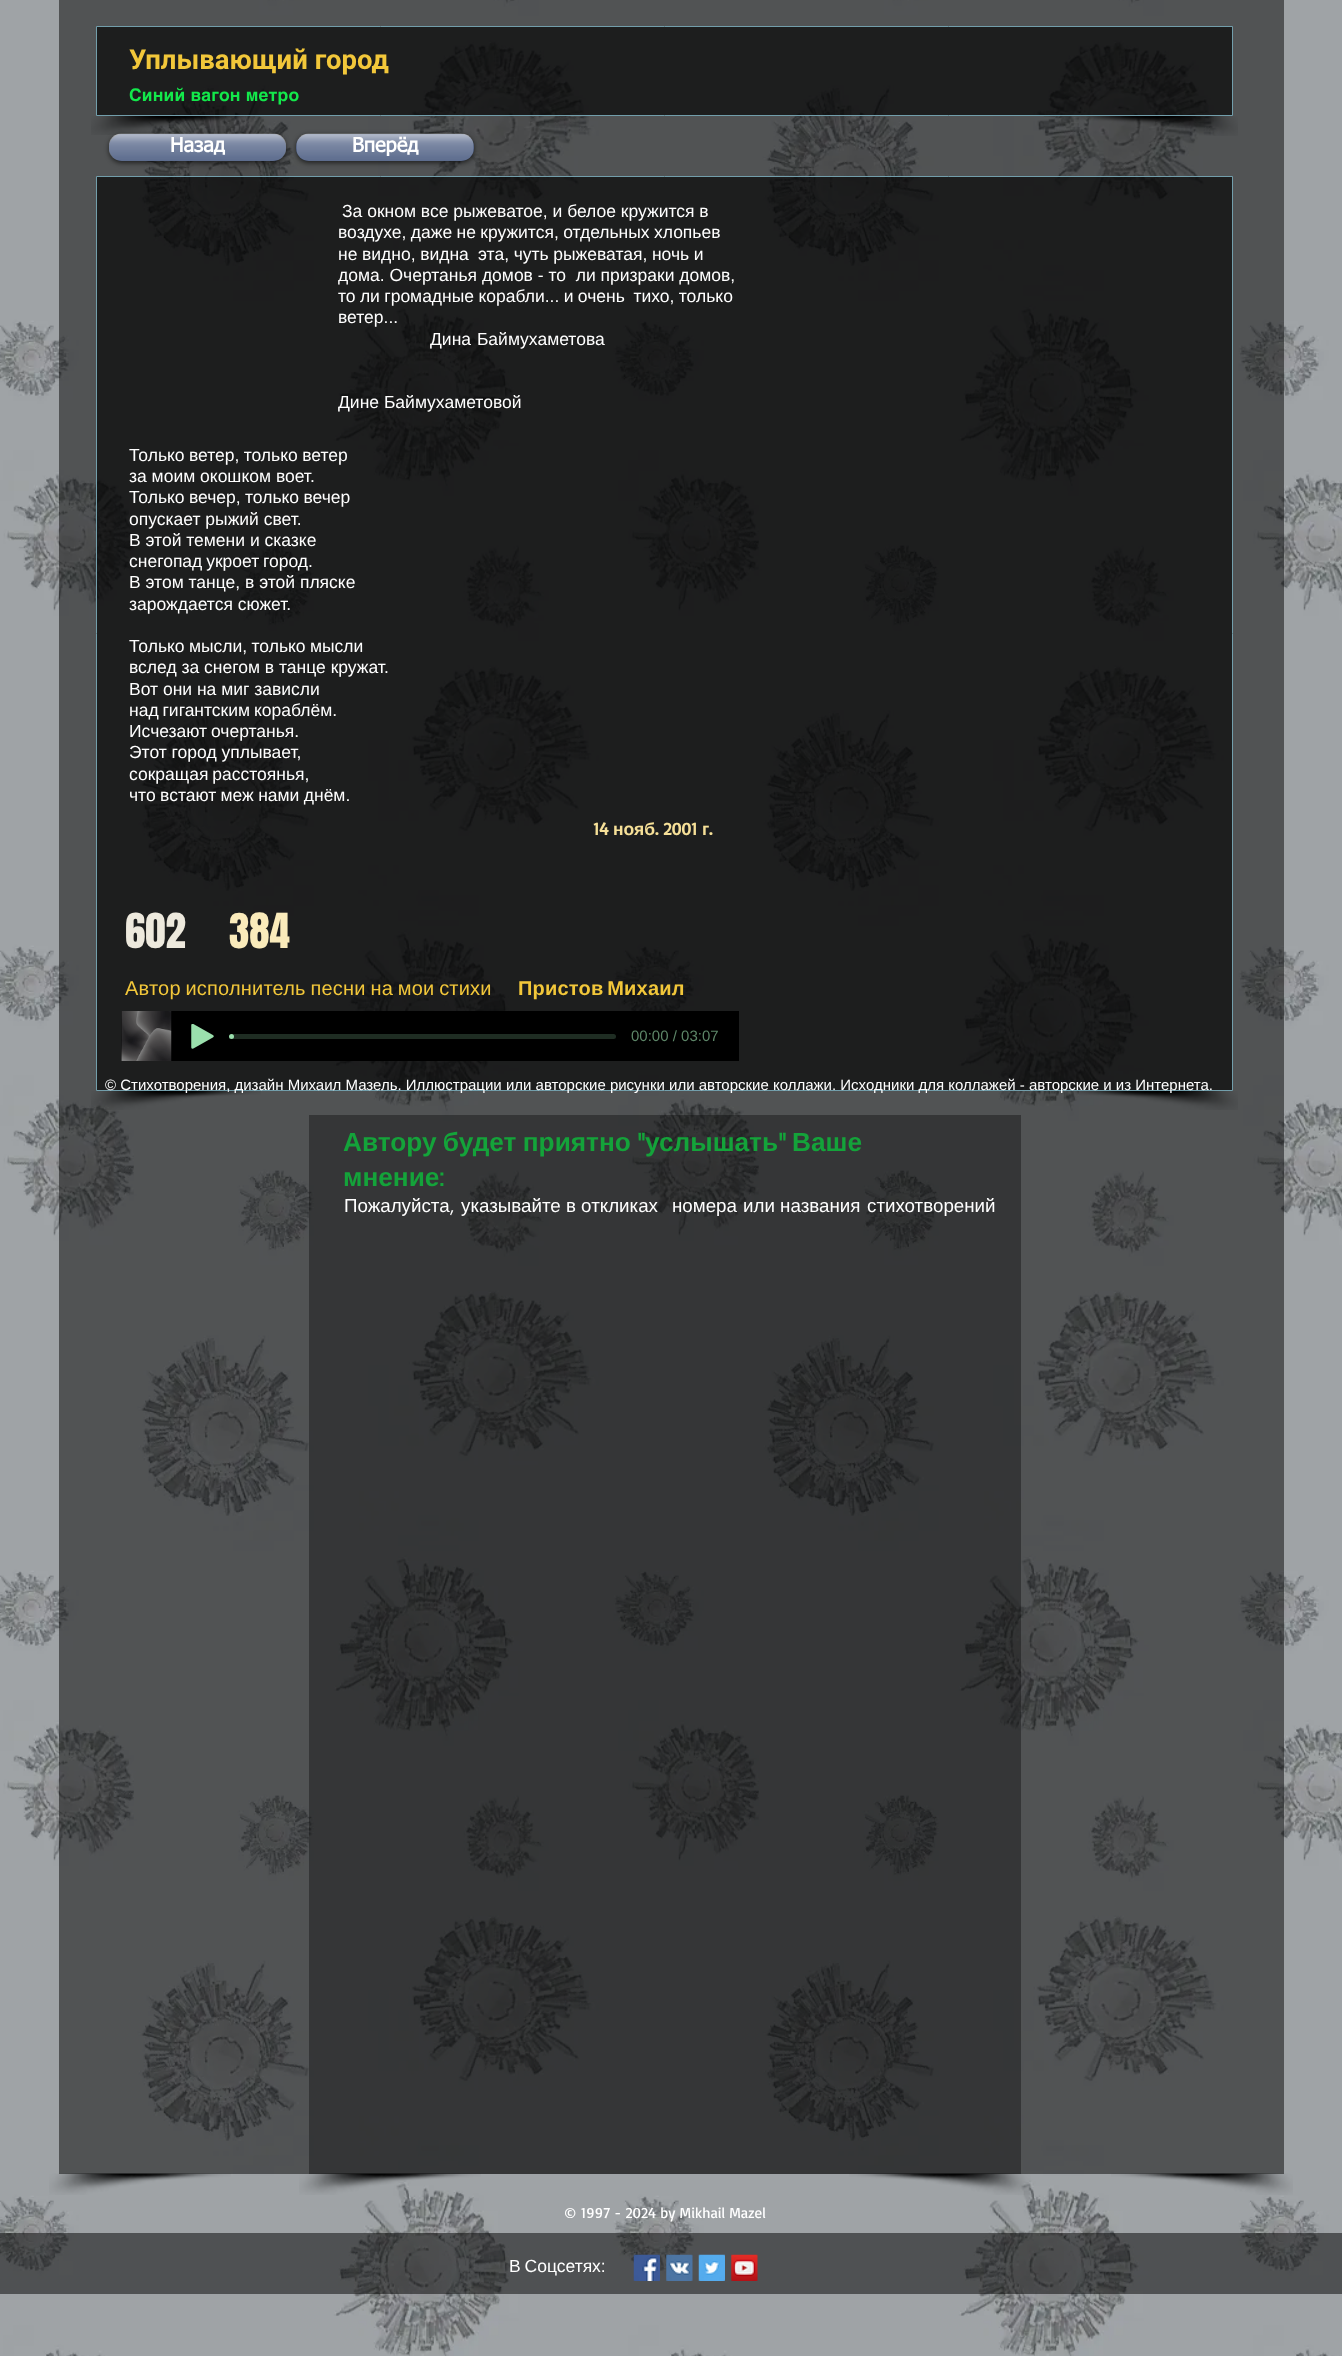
async function draw(canvas) {
  canvas.width = 1342;
  canvas.height = 2356;
  const ctx = canvas.getContext('2d');
  ctx.miterLimit = 4;
  ctx.fontKerning = 'normal';
  function label(s, x, y, font, color) {
    ctx.font = font;
    ctx.fillStyle = color;
    ctx.fillText(s, x, y);
  }
  function rect(x, y, w, h, color) {
    ctx.fillStyle = color;
    ctx.fillRect(x, y, w, h);
  }
  function roundedRect(x, y, w, h, r, color) {
    ctx.fillStyle = color;
    ctx.beginPath();
    ctx.roundRect(x, y, w, h, r);
    ctx.fill();
  }
  async function image(src, x, y, w, h) {
    const img = new Image();
    img.src = src;
    await img.decode();
    ctx.drawImage(img, x, y, w, h);
  }

  rect(0, 0, 1342, 2356, '#fff');
  await image('assets/img1.png', 0, 0, 1342, 2356);
  rect(59, 0, 1225, 2174, '#0000007d');
  await image('assets/img2.png', 49, 2173, 182, 22);
  await image('assets/img3.png', 1111, 2173, 182, 22);
  ctx.fillStyle = '#000000a3';
  ctx.beginPath();
  ctx.rect(96.5, 26.5, 1136, 89);
  ctx.fill();
  ctx.strokeStyle = '#729eab';
  ctx.stroke();
  label('Уплывающий город', 129, 69, 'bold 27.5px Roboto', '#f2c73a');
  ctx.letterSpacing = '0.2px';
  label('Синий вагон метро', 129, 101, 'bold 17.5px helvetica', '#13e84b');
  await image('assets/img4.png', 91, 116, 168, 19);
  await image('assets/img5.png', 1071, 116, 167, 20);
  ctx.fillStyle = '#00000099';
  ctx.filter = 'blur(2.5px)';
  ctx.beginPath();
  ctx.roundRect(109, 135, 177, 28, 13);
  ctx.fill();
  ctx.filter = 'none';
  roundedRect(109, 134, 177, 27, 13, '#394c75');
  await image('assets/img6.png', 109, 133, 177, 28);
  ctx.letterSpacing = '0px';
  label('Назад', 170, 152, 'bold 20px tahoma', '#fff');
  ctx.fillStyle = '#00000099';
  ctx.filter = 'blur(2.5px)';
  ctx.beginPath();
  ctx.roundRect(296, 135, 178, 28, 13);
  ctx.fill();
  ctx.filter = 'none';
  roundedRect(296, 134, 178, 27, 13, '#394c75');
  await image('assets/img7.png', 296, 133, 178, 28);
  label('Вперёд', 352, 152, 'bold 20px tahoma', '#fff');
  ctx.fillStyle = '#000000a3';
  ctx.beginPath();
  ctx.rect(96.5, 176.5, 1136, 914);
  ctx.fill();
  ctx.stroke();
  label('За окном все рыжеватое, и белое кружится в', 342, 217, '17.5px Liberation Sans', '#fff');
  ctx.wordSpacing = '-0.5px';
  label('воздухе, даже не кружится, отдельных хлопьев', 338, 238, '17.5px Liberation Sans', '#fff');
  ctx.wordSpacing = '-0.25px';
  label('не видно, видна  эта, чуть рыжеватая, ночь и', 338, 260, '17.5px Liberation Sans', '#fff');
  ctx.wordSpacing = '0px';
  label('дома. Очертанья домов - то  ли призраки домов,', 338, 281, '17.5px Liberation Sans', '#fff');
  ctx.wordSpacing = '-0.5px';
  label('то ли громадные корабли... и очень  тихо, только', 338, 302, '17.5px Liberation Sans', '#fff');
  ctx.wordSpacing = '0px';
  label('ветер...', 338, 323, '17.5px Liberation Sans', '#fff');
  ctx.wordSpacing = '1px';
  label('Дина Баймухаметова', 430, 345, '17.5px Liberation Sans', '#fff');
  ctx.wordSpacing = '0px';
  label('Дине Баймухаметовой', 338, 408, '17.5px Liberation Sans', '#fff');
  ctx.wordSpacing = '-0.5px';
  label('Только ветер, только ветер', 129, 461, '17.5px Liberation Sans', '#fff');
  ctx.wordSpacing = '0px';
  label('за моим окошком воет.', 129, 482, '17.5px Liberation Sans', '#fff');
  ctx.wordSpacing = '-0.5px';
  label('Только вечер, только вечер', 129, 503, '17.5px Liberation Sans', '#fff');
  ctx.wordSpacing = '0px';
  label('опускает рыжий свет.', 129, 525, '17.5px Liberation Sans', '#fff');
  label('В этой темени и сказке', 129, 546, '17.5px Liberation Sans', '#fff');
  ctx.wordSpacing = '-1px';
  label('снегопад укроет город.', 129, 567, '17.5px Liberation Sans', '#fff');
  ctx.wordSpacing = '0px';
  label('В этом танце, в этой пляске', 129, 588, '17.5px Liberation Sans', '#fff');
  label('зарождается сюжет.', 129, 610, '17.5px Liberation Sans', '#fff');
  ctx.wordSpacing = '-0.5px';
  label('Только мысли, только мысли', 129, 652, '17.5px Liberation Sans', '#fff');
  ctx.wordSpacing = '0px';
  label('вслед за снегом в танце кружат.', 129, 673, '17.5px Liberation Sans', '#fff');
  label('Вот они на миг зависли', 129, 695, '17.5px Liberation Sans', '#fff');
  ctx.wordSpacing = '-1px';
  label('над гигантским кораблём.', 129, 716, '17.5px Liberation Sans', '#fff');
  label('Исчезают очертанья.', 129, 737, '17.5px Liberation Sans', '#fff');
  ctx.wordSpacing = '0px';
  label('Этот город уплывает,', 129, 758, '17.5px Liberation Sans', '#fff');
  ctx.wordSpacing = '-1px';
  label('сокращая расстоянья,', 129, 780, '17.5px Liberation Sans', '#fff');
  ctx.wordSpacing = '-0.5px';
  label('что встают меж нами днём.', 129, 801, '17.5px Liberation Sans', '#fff');
  ctx.wordSpacing = '0px';
  label('14', 593, 835, 'bold 17.5px Basic', '#f6e098');
  label('нояб', 613, 835, 'bold 17.5px Liberation Sans', '#f6e098');
  label('. 2001', 655, 835, 'bold 17.5px Basic', '#f6e098');
  label('г', 702, 835, 'bold 17.5px Liberation Sans', '#f6e098');
  label('.', 709, 835, 'bold 17.5px Basic', '#f6e098');
  label('602', 125, 948, '41px Anton', '#ede9dd');
  label('384', 229, 948, '41px Anton', '#faebbb');
  ctx.letterSpacing = '0.2px';
  ctx.wordSpacing = '-1px';
  label('Автор исполнитель песни на мои стихи', 125, 995, '20px Liberation Sans', '#f2c73a');
  ctx.wordSpacing = '-2px';
  label('Пристов Михаил', 518, 995, 'bold 20px Liberation Sans', '#f2c73a');
  rect(121, 1011, 618, 50, '#000');
  await image('assets/img8.png', 121, 1011, 51, 50);
  await image('assets/img9.png', 191, 1024, 23, 25);
  roundedRect(231, 1034, 385, 5, 2.5, '#1f2d23');
  ctx.fillStyle = '#9be0ad';
  ctx.beginPath();
  ctx.arc(231.5, 1036.5, 2.5, 0, 2 * Math.PI);
  ctx.fill();
  ctx.letterSpacing = '0px';
  ctx.wordSpacing = '0px';
  label('00:00 / 03:07', 631, 1041, '15px Liberation Sans', '#5d8668');
  await image('assets/img10.png', 91, 1091, 170, 19);
  await image('assets/img11.png', 1069, 1091, 169, 19);
  label('© Стихотворения, дизайн Михаил Мазель. Иллюстрации или авторские рисунки или авторские коллажи. Исходники для коллажей - авторские и из Интернета.', 105, 1090, '15px Liberation Sans', '#fff');
  await image('assets/img12.png', 299, 2173, 182, 22);
  await image('assets/img13.png', 849, 2173, 182, 22);
  rect(309, 1115, 712, 1059, '#00000057');
  ctx.wordSpacing = '-1px';
  label('Автору будет приятно', 343, 1151, 'bold 26.25px Liberation Sans', '#14a33a');
  ctx.wordSpacing = '0px';
  label('"', 637, 1151, 'bold 26.25px "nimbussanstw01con"', '#14a33a');
  label('услышать', 645, 1151, 'bold 26.25px Liberation Sans', '#14a33a');
  label('"', 778, 1151, 'bold 26.25px "nimbussanstw01con"', '#14a33a');
  label('Ваше', 792, 1151, 'bold 26.25px Liberation Sans', '#14a33a');
  label('мнение', 343, 1186, 'bold 26.25px Liberation Sans', '#14a33a');
  label(':', 439, 1186, 'bold 26.25px "nimbussanstw01con"', '#14a33a');
  label('Пожалуйста', 344, 1212, '18.75px Liberation Sans', '#fff');
  label(',', 449, 1212, '18.75px futura', '#fff');
  label('указывайте в откликах', 461, 1212, '18.75px Liberation Sans', '#fff');
  label('номера', 672, 1212, '18.75px Liberation Sans', '#fff');
  label('или названия', 743, 1212, '18.75px Liberation Sans', '#fff');
  label('стихотворений', 867, 1212, '18.75px Liberation Sans', '#fff');
  label('© 1997 - 2024 by Mikhail Mazel', 564, 2218, '15px Basic', '#fff');
  rect(0, 2233, 1342, 61, '#00000080');
  ctx.wordSpacing = '-1px';
  label('В Соцсетях:', 509, 2272, '17.5px Liberation Sans', '#fff');
  await image('assets/img14.png', 633, 2254, 27, 27);
  await image('assets/img15.png', 666, 2254, 27, 27);
  await image('assets/img16.png', 698, 2254, 27, 27);
  await image('assets/img17.png', 731, 2254, 27, 27);
}

draw(document.querySelector('canvas'));
